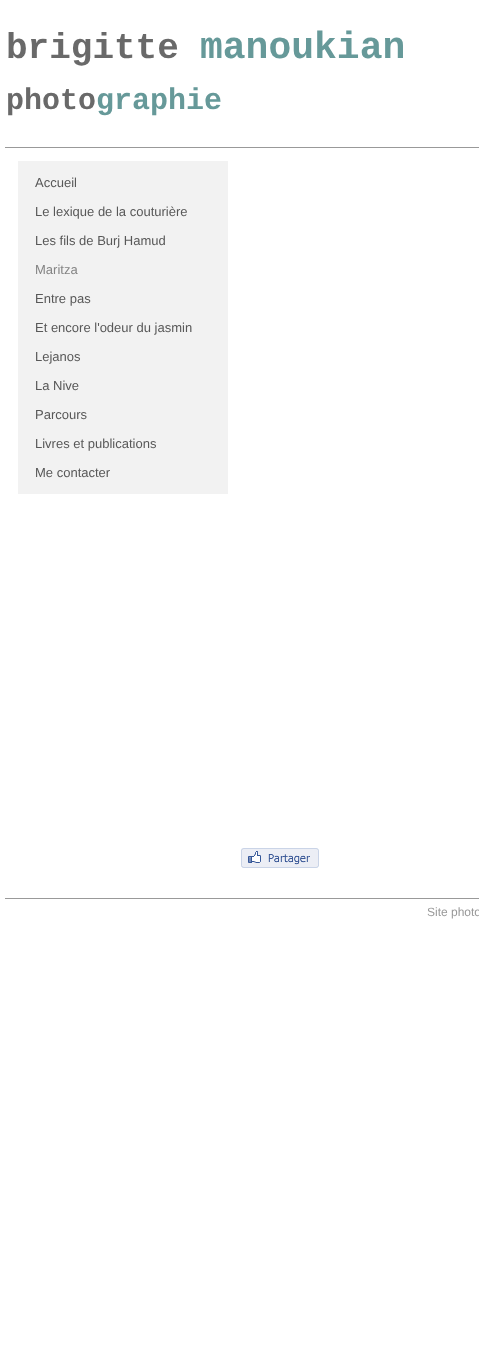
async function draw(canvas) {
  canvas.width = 479;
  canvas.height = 1361;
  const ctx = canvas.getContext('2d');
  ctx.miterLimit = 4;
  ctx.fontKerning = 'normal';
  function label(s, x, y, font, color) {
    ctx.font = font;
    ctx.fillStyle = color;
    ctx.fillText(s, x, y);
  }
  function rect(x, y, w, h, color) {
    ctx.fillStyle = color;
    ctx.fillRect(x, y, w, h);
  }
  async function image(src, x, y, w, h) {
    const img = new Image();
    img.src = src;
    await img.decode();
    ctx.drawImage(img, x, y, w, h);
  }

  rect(0, 0, 479, 1361, '#fff');
  rect(5, 147, 474, 1, '#999');
  label('brigitte', 6, 58, 'bold 36px Liberation Mono', '#696969');
  label('manoukian', 200, 58, 'bold 38px Liberation Mono', '#699');
  label('photo', 6, 109, 'bold 30px Liberation Mono', '#696969');
  label('graphie', 96, 109, 'bold 30px Liberation Mono', '#699');
  rect(5, 898, 474, 1, '#999');
  rect(18, 161, 210, 333, '#f2f2f2');
  label('Accueil', 35, 187, '13px Liberation Sans', '#585858');
  label('Le lexique de la couturière', 35, 216, '13px Liberation Sans', '#585858');
  label('Les fils de Burj Hamud', 35, 245, '13px Liberation Sans', '#585858');
  label('Maritza', 35, 274, '13px Liberation Sans', '#848484');
  label('Entre pas', 35, 303, '13px Liberation Sans', '#585858');
  label('Et encore l\'odeur du jasmin', 35, 332, '13px Liberation Sans', '#585858');
  label('Lejanos', 35, 361, '13px Liberation Sans', '#585858');
  label('La Nive', 35, 390, '13px Liberation Sans', '#585858');
  label('Parcours', 35, 419, '13px Liberation Sans', '#585858');
  label('Livres et publications', 35, 448, '13px Liberation Sans', '#585858');
  label('Me contacter', 35, 477, '13px Liberation Sans', '#585858');
  await image('assets/img1.png', 241, 848, 78, 20);
  label('Site photo', 427, 916, '12px Liberation Sans', '#999');
}

draw(document.querySelector('canvas'));
